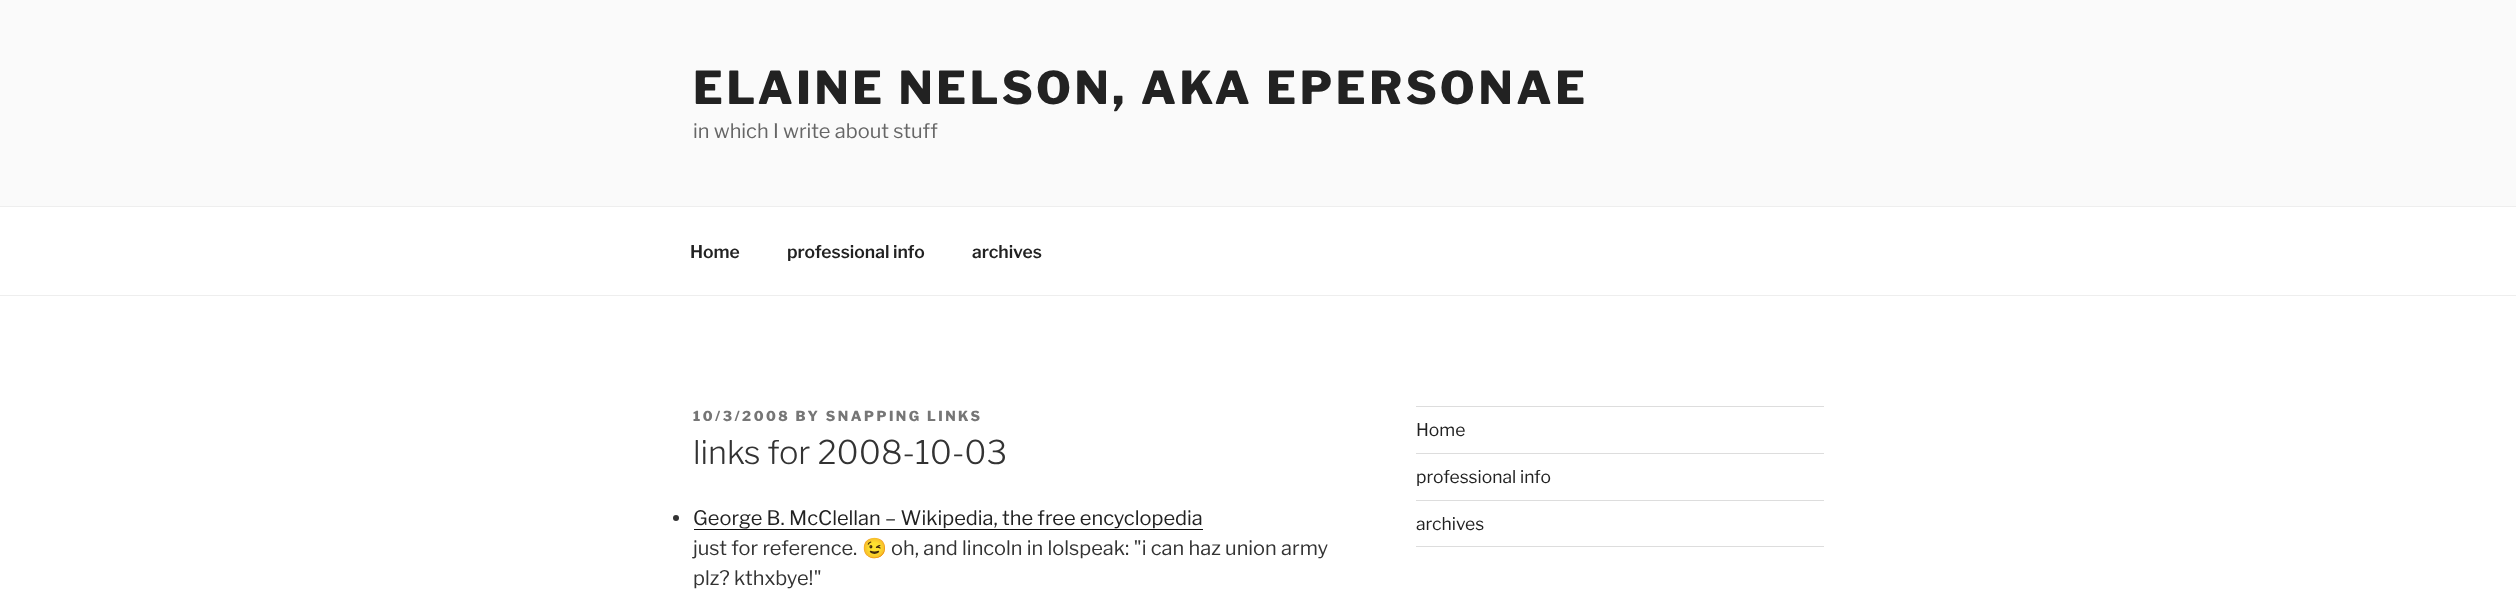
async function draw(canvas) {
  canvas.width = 2516;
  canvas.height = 593;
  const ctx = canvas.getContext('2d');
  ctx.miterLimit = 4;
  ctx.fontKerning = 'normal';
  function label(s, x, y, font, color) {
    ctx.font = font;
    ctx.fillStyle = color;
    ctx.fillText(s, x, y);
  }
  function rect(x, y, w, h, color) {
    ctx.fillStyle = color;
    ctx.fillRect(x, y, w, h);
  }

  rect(0, 0, 2516, 593, '#fff');
  rect(0, 0, 2516, 206, '#fafafa');
  ctx.letterSpacing = '3.6px';
  label('ELAINE NELSON, AKA EPERSONAE', 693, 104, '100 45px Libre Franklin', '#222');
  ctx.letterSpacing = '0px';
  label('in which I write about stuff', 693, 138, '100 20px "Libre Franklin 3"', '#666');
  rect(0, 206, 2516, 1, '#eee');
  rect(0, 295, 2516, 1, '#eee');
  label('Home', 690, 258, '100 17.5px "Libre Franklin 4"', '#222');
  label('professional info', 787, 258, '100 17.5px "Libre Franklin 4"', '#222');
  label('archives', 972, 258, '100 17.5px "Libre Franklin 4"', '#222');
  ctx.letterSpacing = '2.5px';
  label('10/3/2008 BY SNAPPING LINKS', 693, 421, '100 13.75px Libre Franklin', '#767676');
  ctx.letterSpacing = '0px';
  label('links for 2008-10-03', 693, 464, '100 32.5px "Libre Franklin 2"', '#333');
  ctx.beginPath();
  ctx.arc(676, 518, 3, 0, 2 * Math.PI);
  ctx.fill();
  label('George B. McClellan – Wikipedia, the free encyclopedia', 693, 525, '100 20px "Libre Franklin 3"', '#222');
  rect(694, 529, 509, 1, '#0f0f0f');
  label('just for reference.', 693, 555, '100 20px "Libre Franklin 3"', '#333');
  label('😉', 862, 555, '20px Noto Color Emoji', '#333');
  label('oh, and lincoln in lolspeak: "i can haz union army', 891, 555, '100 20px "Libre Franklin 3"', '#333');
  label('plz? kthxbye!"', 693, 585, '100 20px "Libre Franklin 3"', '#333');
  rect(1416, 406, 408, 1, '#ddd');
  rect(1416, 453, 408, 1, '#ddd');
  label('Home', 1416, 436, '100 17.5px "Libre Franklin 3"', '#222');
  rect(1416, 500, 408, 1, '#ddd');
  label('professional info', 1416, 483, '100 17.5px "Libre Franklin 3"', '#222');
  rect(1416, 546, 408, 1, '#ddd');
  label('archives', 1416, 530, '100 17.5px "Libre Franklin 3"', '#222');
}

draw(document.querySelector('canvas'));
